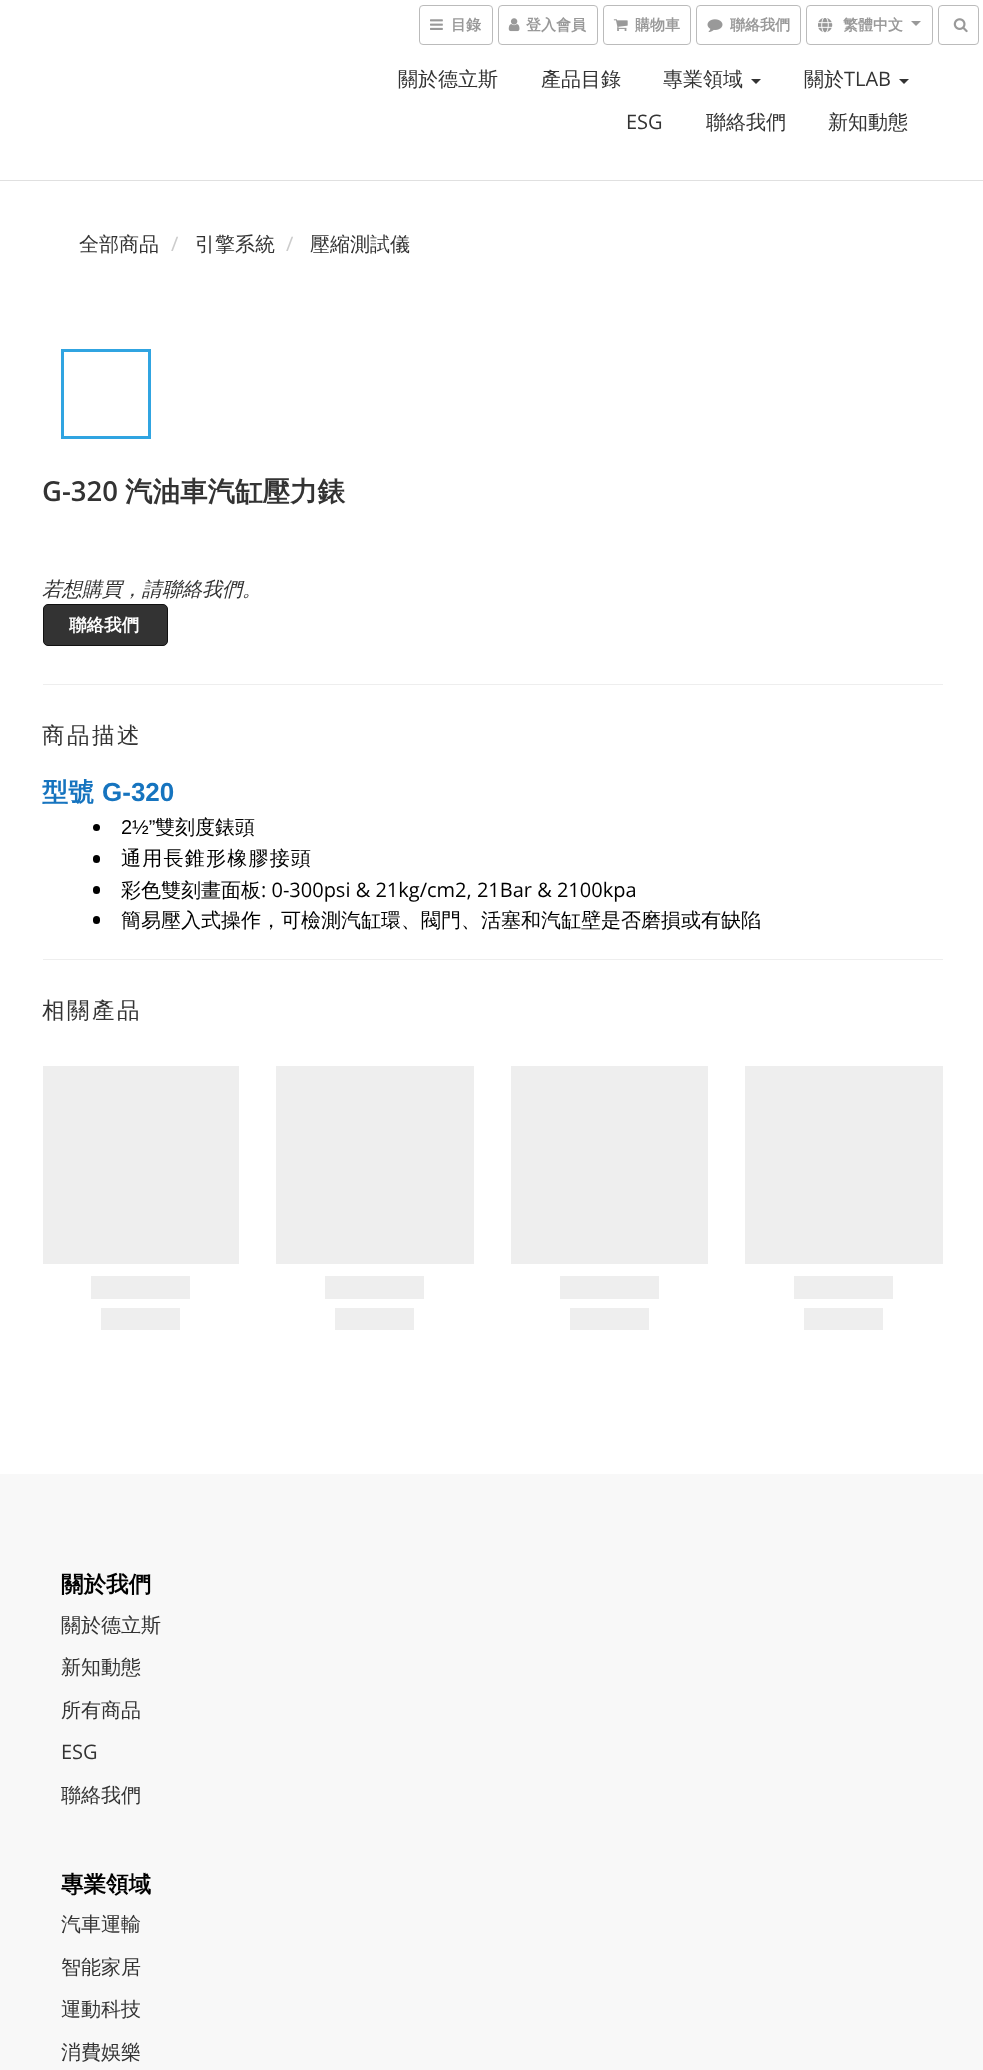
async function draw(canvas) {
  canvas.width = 983;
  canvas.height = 2070;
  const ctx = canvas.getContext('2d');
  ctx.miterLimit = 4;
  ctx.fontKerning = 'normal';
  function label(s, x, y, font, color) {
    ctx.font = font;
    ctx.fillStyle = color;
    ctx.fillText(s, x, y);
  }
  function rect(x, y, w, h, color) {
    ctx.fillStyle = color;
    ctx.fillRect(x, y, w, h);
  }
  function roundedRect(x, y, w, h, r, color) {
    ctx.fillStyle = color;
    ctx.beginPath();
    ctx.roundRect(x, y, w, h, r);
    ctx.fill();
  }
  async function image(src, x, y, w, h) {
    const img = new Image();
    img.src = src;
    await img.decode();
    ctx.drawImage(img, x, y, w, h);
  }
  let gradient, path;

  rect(0, 0, 983, 2070, '#fff');
  ctx.beginPath();
  ctx.roundRect(419.5, 5.5, 73, 39, 3.5);
  ctx.strokeStyle = '#bbb';
  ctx.stroke();
  await image('assets/img1.png', 430, 19, 13, 11);
  label('目錄', 451, 30, 'bold 15px WenQuanYi Zen Hei', '#999');
  ctx.beginPath();
  ctx.roundRect(498.5, 5.5, 99, 39, 3.5);
  ctx.stroke();
  await image('assets/img2.png', 508, 18, 12, 14);
  label('登入會員', 526, 30, 'bold 15px WenQuanYi Zen Hei', '#999');
  ctx.beginPath();
  ctx.roundRect(603.5, 5.5, 87, 39, 3.5);
  ctx.stroke();
  await image('assets/img3.png', 613, 19, 15, 12);
  label('購物車', 635, 30, 'bold 15px WenQuanYi Zen Hei', '#999');
  ctx.beginPath();
  ctx.roundRect(696.5, 5.5, 104, 39, 3.5);
  ctx.stroke();
  await image('assets/img4.png', 707, 19, 16, 13);
  label('聯絡我們', 730, 30, 'bold 15px WenQuanYi Zen Hei', '#999');
  ctx.beginPath();
  ctx.roundRect(806.5, 5.5, 126, 39, 3.5);
  ctx.stroke();
  await image('assets/img5.png', 818, 18, 15, 15);
  label('繁體中文', 843, 30, 'bold 15px WenQuanYi Zen Hei', '#999');
  path = new Path2D('M911 21H921L916 26Z');
  ctx.fill(path);
  ctx.beginPath();
  ctx.roundRect(938.5, 5.5, 40, 39, 3.5);
  ctx.stroke();
  await image('assets/img6.png', 953, 18, 15, 15);
  rect(0, 180, 983, 1, '#e0e0e0');
  label('關於德立斯', 398, 86, '500 20px WenQuanYi Zen Hei', '#333');
  label('產品目錄', 541, 86, '500 20px WenQuanYi Zen Hei', '#333');
  label('專業領域', 663, 86, '500 20px WenQuanYi Zen Hei', '#333');
  path = new Path2D('M751 79H761L756 84Z');
  ctx.fill(path);
  label('關於', 804, 86, '500 20px WenQuanYi Zen Hei', '#333');
  label('TLAB', 844, 86, '20px Open Sans', '#333');
  path = new Path2D('M899 79H909L904 84Z');
  ctx.fill(path);
  label('ESG', 626, 129, '20px Open Sans', '#333');
  label('聯絡我們', 706, 129, '500 20px WenQuanYi Zen Hei', '#333');
  label('新知動態', 828, 129, '500 20px WenQuanYi Zen Hei', '#333');
  label('全部商品', 79, 251, '500 20px WenQuanYi Zen Hei', '#333');
  label('/', 171, 251, '20px Open Sans', '#ccc');
  label('引擎系統', 195, 251, '500 20px WenQuanYi Zen Hei', '#333');
  label('/', 286, 251, '20px Open Sans', '#ccc');
  label('壓縮測試儀', 310, 251, '500 20px WenQuanYi Zen Hei', '#333');
  ctx.strokeStyle = '#30a4e1';
  ctx.lineWidth = 3;
  ctx.strokeRect(62.5, 350.5, 87, 87);
  label('G-320', 42, 501, '600 27.5px Open Sans', '#333');
  label('汽油車汽缸壓力錶', 125, 501, 'bold 27.5px WenQuanYi Zen Hei', '#333');
  label('若想購買，請聯絡我們。', 42, 596, 'italic 500 20px WenQuanYi Zen Hei', '#333');
  ctx.beginPath();
  ctx.roundRect(43.5, 604.5, 124, 41, 4.5);
  ctx.fill();
  ctx.strokeStyle = '#111';
  ctx.lineWidth = 1;
  ctx.stroke();
  label('聯絡我們', 69, 631, 'bold 17.5px WenQuanYi Zen Hei', '#fff');
  rect(43, 684, 900, 1, '#eee');
  ctx.letterSpacing = '2.5px';
  label('商品描述', 42, 743, '500 22.5px WenQuanYi Zen Hei', '#333');
  ctx.letterSpacing = '0px';
  label('型號', 42, 801, 'bold 26px WenQuanYi Zen Hei', '#1674bf');
  label('G-320', 102, 801, 'bold 26px Liberation Sans', '#1674bf');
  ctx.fillStyle = '#000';
  ctx.beginPath();
  ctx.arc(96.5, 827.5, 3.5, 0, 2 * Math.PI);
  ctx.fill();
  label('2½”', 121, 834, '20px Liberation Sans', '#000');
  label('雙刻度錶頭', 155, 834, '500 20px WenQuanYi Zen Hei', '#000');
  roundedRect(93, 855, 7, 8, 3.5, '#000');
  ctx.letterSpacing = '1.25px';
  label('通用長錐形橡膠接頭', 121, 865, '500 20px WenQuanYi Zen Hei', '#000');
  roundedRect(93, 886, 7, 8, 3.5, '#000');
  ctx.letterSpacing = '0px';
  label('彩色雙刻畫面板', 121, 897, '500 20px WenQuanYi Zen Hei', '#000');
  label(': 0-300psi & 21kg/cm2, 21Bar & 2100kpa', 261, 897, '20px Open Sans', '#000');
  roundedRect(93, 916, 7, 8, 3.5, '#000');
  label('簡易壓入式操作，可檢測汽缸環、閥門、活塞和汽缸壁是否磨損或有缺陷', 121, 927, '500 20px WenQuanYi Zen Hei', '#000');
  rect(43, 959, 900, 1, '#eee');
  ctx.letterSpacing = '2.5px';
  label('相關產品', 42, 1018, '500 22.5px WenQuanYi Zen Hei', '#333');
  gradient = ctx.createLinearGradient(-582, 1165, 668, 1165);
  gradient.addColorStop(0.1, '#eee');
  gradient.addColorStop(0.3, '#dfdfdf');
  gradient.addColorStop(0.5, '#eee');
  ctx.fillStyle = gradient;
  ctx.fillRect(43, 1066, 196, 198);
  gradient = ctx.createLinearGradient(-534, 1288, 716, 1288);
  gradient.addColorStop(0.1, '#eee');
  gradient.addColorStop(0.3, '#dfdfdf');
  gradient.addColorStop(0.5, '#eee');
  ctx.fillStyle = gradient;
  ctx.fillRect(91, 1276, 99, 23);
  gradient = ctx.createLinearGradient(-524, 1319, 726, 1319);
  gradient.addColorStop(0.1, '#eee');
  gradient.addColorStop(0.3, '#dfdfdf');
  gradient.addColorStop(0.5, '#eee');
  ctx.fillStyle = gradient;
  ctx.fillRect(101, 1308, 79, 22);
  gradient = ctx.createLinearGradient(-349, 1165, 901, 1165);
  gradient.addColorStop(0.1, '#eee');
  gradient.addColorStop(0.3, '#dfdfdf');
  gradient.addColorStop(0.5, '#eee');
  ctx.fillStyle = gradient;
  ctx.fillRect(276, 1066, 198, 198);
  gradient = ctx.createLinearGradient(-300, 1288, 950, 1288);
  gradient.addColorStop(0.1, '#eee');
  gradient.addColorStop(0.3, '#dfdfdf');
  gradient.addColorStop(0.5, '#eee');
  ctx.fillStyle = gradient;
  ctx.fillRect(325, 1276, 99, 23);
  gradient = ctx.createLinearGradient(-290, 1319, 960, 1319);
  gradient.addColorStop(0.1, '#eee');
  gradient.addColorStop(0.3, '#dfdfdf');
  gradient.addColorStop(0.5, '#eee');
  ctx.fillStyle = gradient;
  ctx.fillRect(335, 1308, 79, 22);
  gradient = ctx.createLinearGradient(-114, 1165, 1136, 1165);
  gradient.addColorStop(0.1, '#eee');
  gradient.addColorStop(0.3, '#dfdfdf');
  gradient.addColorStop(0.5, '#eee');
  ctx.fillStyle = gradient;
  ctx.fillRect(511, 1066, 197, 198);
  gradient = ctx.createLinearGradient(-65, 1288, 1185, 1288);
  gradient.addColorStop(0.1, '#eee');
  gradient.addColorStop(0.3, '#dfdfdf');
  gradient.addColorStop(0.5, '#eee');
  ctx.fillStyle = gradient;
  ctx.fillRect(560, 1276, 99, 23);
  gradient = ctx.createLinearGradient(-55, 1319, 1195, 1319);
  gradient.addColorStop(0.1, '#eee');
  gradient.addColorStop(0.3, '#dfdfdf');
  gradient.addColorStop(0.5, '#eee');
  ctx.fillStyle = gradient;
  ctx.fillRect(570, 1308, 79, 22);
  gradient = ctx.createLinearGradient(120, 1165, 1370, 1165);
  gradient.addColorStop(0.1, '#eee');
  gradient.addColorStop(0.3, '#dfdfdf');
  gradient.addColorStop(0.5, '#eee');
  ctx.fillStyle = gradient;
  ctx.fillRect(745, 1066, 198, 198);
  gradient = ctx.createLinearGradient(169, 1288, 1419, 1288);
  gradient.addColorStop(0.1, '#eee');
  gradient.addColorStop(0.3, '#dfdfdf');
  gradient.addColorStop(0.5, '#eee');
  ctx.fillStyle = gradient;
  ctx.fillRect(794, 1276, 99, 23);
  gradient = ctx.createLinearGradient(179, 1319, 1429, 1319);
  gradient.addColorStop(0.1, '#eee');
  gradient.addColorStop(0.3, '#dfdfdf');
  gradient.addColorStop(0.5, '#eee');
  ctx.fillStyle = gradient;
  ctx.fillRect(804, 1308, 79, 22);
  rect(0, 1474, 983, 596, '#f8f8f8');
  ctx.letterSpacing = '0px';
  label('關於我們', 61, 1592, 'bold 22.5px WenQuanYi Zen Hei', '#000');
  label('關於德立斯', 61, 1632, '500 20px WenQuanYi Zen Hei', '#333');
  label('新知動態', 61, 1674, '500 20px WenQuanYi Zen Hei', '#333');
  label('所有商品', 61, 1717, '500 20px WenQuanYi Zen Hei', '#333');
  label('ESG', 61, 1759, '20px Open Sans', '#333');
  label('聯絡我們', 61, 1802, '500 20px WenQuanYi Zen Hei', '#333');
  label('專業領域', 61, 1892, 'bold 22.5px WenQuanYi Zen Hei', '#000');
  label('汽車運輸', 61, 1931, '500 20px WenQuanYi Zen Hei', '#333');
  label('智能家居', 61, 1974, '500 20px WenQuanYi Zen Hei', '#333');
  label('運動科技', 61, 2016, '500 20px WenQuanYi Zen Hei', '#333');
  label('消費娛樂', 61, 2059, '500 20px WenQuanYi Zen Hei', '#333');
}

draw(document.querySelector('canvas'));
